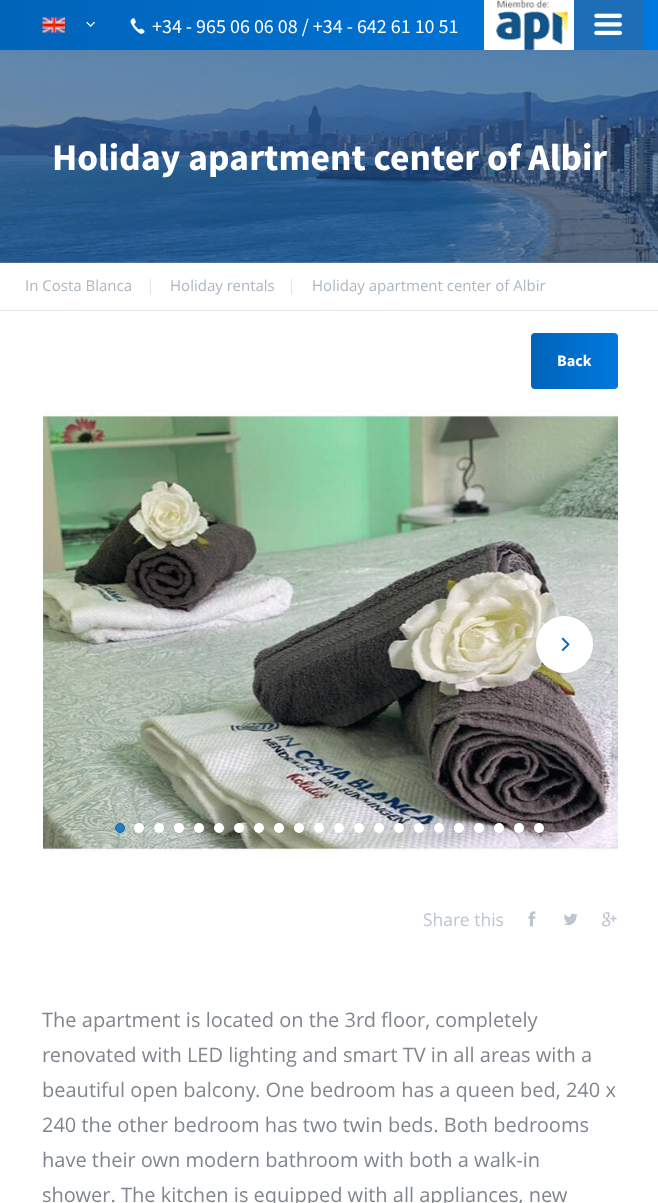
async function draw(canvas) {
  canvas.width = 658;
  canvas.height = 1203;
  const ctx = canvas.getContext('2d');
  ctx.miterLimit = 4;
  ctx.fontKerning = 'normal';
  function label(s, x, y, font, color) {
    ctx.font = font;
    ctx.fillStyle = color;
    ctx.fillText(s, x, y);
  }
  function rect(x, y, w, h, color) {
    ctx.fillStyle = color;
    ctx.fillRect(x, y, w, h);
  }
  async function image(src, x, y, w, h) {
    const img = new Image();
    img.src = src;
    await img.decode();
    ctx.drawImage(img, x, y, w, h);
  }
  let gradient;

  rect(0, 0, 658, 1203, '#fff');
  rect(0, 262, 658, 1, '#708bad');
  gradient = ctx.createLinearGradient(0, 25, 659, 25);
  gradient.addColorStop(0, '#0064b9');
  gradient.addColorStop(1, '#0078de');
  ctx.fillStyle = gradient;
  ctx.fillRect(0, 0, 658, 50);
  rect(484, 0, 90, 50, '#fff');
  await image('assets/img1.png', 42, 17, 23, 16);
  await image('assets/img2.png', 86, 21, 9, 6);
  await image('assets/img3.png', 130, 18, 15, 16);
  label('+34 - 965 06 06 08 / +34 - 642 61 10 51', 152, 33, '20px Source Sans Pro', '#fff');
  await image('assets/img4.png', 496, 0, 72, 50);
  rect(574, 0, 69, 50, '#1c6fb7');
  await image('assets/img5.png', 594, 13, 28, 23);
  await image('assets/img6.png', 0, 50, 658, 213);
  label('Holiday apartment center of Albir', 52, 170, 'bold 37.5px Source Sans Pro', '#fff');
  rect(0, 310, 658, 1, '#e0e5ea');
  label('In Costa Blanca', 25, 291, '15px Open Sans', '#acb7c2');
  rect(150, 279, 1, 15, '#e0e5ea');
  label('Holiday rentals', 170, 291, '15px Open Sans', '#acb7c2');
  rect(291, 279, 1, 15, '#e0e5ea');
  label('Holiday apartment center of Albir', 312, 291, '15px Open Sans', '#acb7c2');
  gradient = ctx.createLinearGradient(531, 361, 618, 361);
  gradient.addColorStop(0, '#0064b9');
  gradient.addColorStop(1, '#0079df');
  ctx.fillStyle = gradient;
  ctx.beginPath();
  ctx.roundRect(531, 333, 87, 56, 4);
  ctx.fill();
  label('Back', 557, 366, 'bold 16px Source Sans Pro', '#fff');
  await image('assets/img7.png', 43, 410, 575, 441);
  ctx.beginPath();
  ctx.arc(564.5, 644.5, 28.5, 0, 2 * Math.PI);
  ctx.fill();
  await image('assets/img8.png', 561, 637, 9, 15);
  ctx.fillStyle = '#297bc0';
  ctx.beginPath();
  ctx.arc(120, 828, 4.5, 0, 2 * Math.PI);
  ctx.fill();
  ctx.strokeStyle = '#0968b9';
  ctx.stroke();
  ctx.fillStyle = '#fff';
  ctx.beginPath();
  ctx.arc(139, 828, 5, 0, 2 * Math.PI);
  ctx.fill();
  ctx.beginPath();
  ctx.arc(159, 828, 5, 0, 2 * Math.PI);
  ctx.fill();
  ctx.beginPath();
  ctx.arc(179, 828, 5, 0, 2 * Math.PI);
  ctx.fill();
  ctx.beginPath();
  ctx.arc(199, 828, 5, 0, 2 * Math.PI);
  ctx.fill();
  ctx.beginPath();
  ctx.arc(219, 828, 5, 0, 2 * Math.PI);
  ctx.fill();
  ctx.beginPath();
  ctx.arc(239, 828, 5, 0, 2 * Math.PI);
  ctx.fill();
  ctx.beginPath();
  ctx.arc(259, 828, 5, 0, 2 * Math.PI);
  ctx.fill();
  ctx.beginPath();
  ctx.arc(279, 828, 5, 0, 2 * Math.PI);
  ctx.fill();
  ctx.beginPath();
  ctx.arc(299, 828, 5, 0, 2 * Math.PI);
  ctx.fill();
  ctx.beginPath();
  ctx.arc(319, 828, 5, 0, 2 * Math.PI);
  ctx.fill();
  ctx.beginPath();
  ctx.arc(339, 828, 5, 0, 2 * Math.PI);
  ctx.fill();
  ctx.beginPath();
  ctx.arc(359, 828, 5, 0, 2 * Math.PI);
  ctx.fill();
  ctx.beginPath();
  ctx.arc(379, 828, 5, 0, 2 * Math.PI);
  ctx.fill();
  ctx.beginPath();
  ctx.arc(399, 828, 5, 0, 2 * Math.PI);
  ctx.fill();
  ctx.beginPath();
  ctx.arc(419, 828, 5, 0, 2 * Math.PI);
  ctx.fill();
  ctx.beginPath();
  ctx.arc(439, 828, 5, 0, 2 * Math.PI);
  ctx.fill();
  ctx.beginPath();
  ctx.arc(459, 828, 5, 0, 2 * Math.PI);
  ctx.fill();
  ctx.beginPath();
  ctx.arc(479, 828, 5, 0, 2 * Math.PI);
  ctx.fill();
  ctx.beginPath();
  ctx.arc(499, 828, 5, 0, 2 * Math.PI);
  ctx.fill();
  ctx.beginPath();
  ctx.arc(519, 828, 5, 0, 2 * Math.PI);
  ctx.fill();
  ctx.beginPath();
  ctx.arc(539, 828, 5, 0, 2 * Math.PI);
  ctx.fill();
  label('Share this', 423, 926, '17.5px Open Sans', '#bfc5cd');
  await image('assets/img9.png', 528, 911, 8, 16);
  await image('assets/img10.png', 564, 913, 14, 13);
  await image('assets/img11.png', 602, 912, 15, 15);
  label('The apartment is located on the 3rd floor, completely', 42, 1027, '20px Open Sans', '#80868f');
  label('renovated with LED lighting and smart TV in all areas with a', 42, 1062, '20px Open Sans', '#80868f');
  label('beautiful open balcony. One bedroom has a queen bed, 240 x', 42, 1097, '20px Open Sans', '#80868f');
  label('240 the other bedroom has two twin beds. Both bedrooms', 42, 1132, '20px Open Sans', '#80868f');
  label('have their own modern bathroom with both a walk-in', 42, 1167, '20px Open Sans', '#80868f');
  label('shower. The kitchen is equipped with all appliances, new', 42, 1202, '20px Open Sans', '#80868f');
}

draw(document.querySelector('canvas'));
